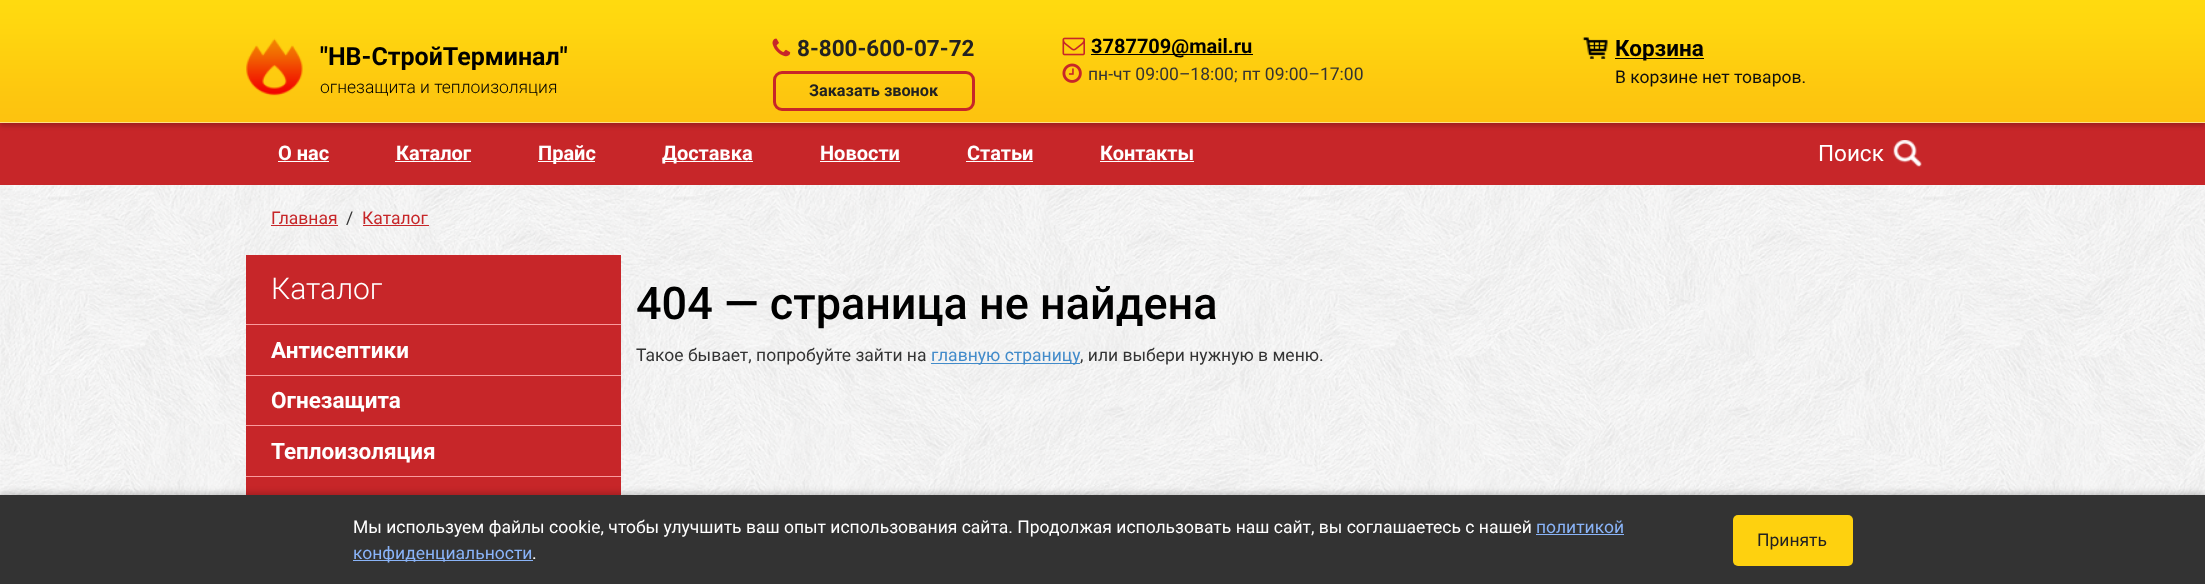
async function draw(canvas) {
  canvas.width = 2205;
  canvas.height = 584;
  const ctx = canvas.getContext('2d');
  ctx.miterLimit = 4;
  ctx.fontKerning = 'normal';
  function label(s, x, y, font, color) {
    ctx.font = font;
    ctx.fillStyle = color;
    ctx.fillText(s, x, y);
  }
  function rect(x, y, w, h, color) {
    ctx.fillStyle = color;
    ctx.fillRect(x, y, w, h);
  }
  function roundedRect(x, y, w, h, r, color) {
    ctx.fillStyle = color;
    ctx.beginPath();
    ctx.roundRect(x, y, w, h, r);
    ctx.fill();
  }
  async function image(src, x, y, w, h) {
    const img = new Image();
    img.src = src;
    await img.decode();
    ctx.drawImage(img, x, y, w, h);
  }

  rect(0, 0, 2205, 584, '#fff');
  rect(0, 123, 2205, 62, '#c72629');
  ctx.fillStyle = '#00000033';
  ctx.filter = 'blur(2px)';
  ctx.beginPath();
  ctx.rect(0, 4, 2205, 122);
  ctx.fill();
  ctx.filter = 'none';
  rect(0, 122, 2205, 1, '#fff');
  await image('assets/img1.png', 0, 0, 2205, 123);
  await image('assets/img2.png', 246, 38, 57, 58);
  label('"НВ-СтройТерминал"', 320, 65, 'bold 25px Roboto', '#000');
  label('огнезащита и теплоизоляция', 320, 93, '300 17.5px Roboto', '#000');
  await image('assets/img3.png', 772, 38, 19, 19);
  label('8-800-600-07-72', 797, 56, 'bold 22.5px Roboto', '#222');
  ctx.beginPath();
  ctx.roundRect(774.5, 72.5, 199, 37, 7.5);
  ctx.strokeStyle = '#c72629';
  ctx.lineWidth = 3;
  ctx.stroke();
  label('Заказать звонок', 809, 96, 'bold 16.25px Roboto', '#222');
  await image('assets/img4.png', 1062, 37, 23, 19);
  rect(1091, 54, 162, 1, '#000');
  label('3787709@mail.ru', 1091, 53, 'bold 20px Roboto', '#000');
  await image('assets/img5.png', 1062, 63, 20, 20);
  label('пн-чт 09:00–18:00; пт 09:00–17:00', 1088, 80, '17.5px Roboto', '#333');
  await image('assets/img6.png', 1582, 37, 26, 22);
  rect(1615, 58, 89, 1, '#000');
  label('Корзина', 1615, 56, 'bold 22.5px Roboto', '#000');
  label('В корзине нет товаров.', 1615, 83, '17.5px Roboto', '#0f0f0f');
  label('О нас', 278, 160, 'bold 20px Roboto', '#fff');
  rect(278, 161, 51, 1, '#fff');
  label('Каталог', 396, 160, 'bold 20px Roboto', '#fff');
  rect(395, 161, 76, 1, '#fff');
  rect(538, 161, 57, 1, '#fff');
  label('Прайс', 538, 160, 'bold 20px Roboto', '#fff');
  rect(663, 161, 90, 1, '#fff');
  label('Доставка', 662, 160, 'bold 20px Roboto', '#fff');
  label('Новости', 820, 160, 'bold 20px Roboto', '#fff');
  rect(820, 161, 80, 1, '#fff');
  label('Статьи', 967, 160, 'bold 20px Roboto', '#fff');
  rect(966, 161, 67, 1, '#fff');
  label('Контакты', 1100, 160, 'bold 20px Roboto', '#fff');
  rect(1100, 161, 94, 1, '#fff');
  await image('assets/img7.png', 1893, 140, 29, 27);
  label('Поиск', 1818, 161, '22.5px Roboto', '#fff');
  await image('assets/img8.png', 0, 185, 2205, 310);
  label('Главная', 271, 224, '17.5px Roboto', '#c72629');
  rect(271, 225, 67, 1, '#c72629');
  label('/', 346, 224, '17.5px Roboto', '#333');
  label('Каталог', 362, 224, '17.5px Roboto', '#c72629');
  rect(363, 225, 66, 1, '#c72629');
  rect(246, 255, 375, 69, '#c72629');
  label('Каталог', 271, 299, '300 30px Roboto', '#fff');
  rect(246, 325, 375, 170, '#c72629');
  rect(246, 324, 375, 1, '#f99b9d');
  label('Антисептики', 271, 358, 'bold 22.5px Roboto', '#fff');
  rect(246, 375, 375, 1, '#f99b9d');
  label('Огнезащита', 271, 408, 'bold 22.5px Roboto', '#fff');
  rect(246, 425, 375, 1, '#f99b9d');
  label('Теплоизоляция', 271, 459, 'bold 22.5px Roboto', '#fff');
  rect(246, 476, 375, 1, '#f99b9d');
  label('404 — страница не найдена', 636, 319, '500 45px Roboto', '#000');
  label('Такое бывает, попробуйте зайти на', 636, 361, '17.5px Roboto', '#333');
  rect(931, 363, 149, 1, '#428bca');
  label('главную страницу', 931, 361, '17.5px Roboto', '#428bca');
  label(', или выбери нужную в меню.', 1080, 361, '17.5px Roboto', '#333');
  ctx.fillStyle = '#00000033';
  ctx.filter = 'blur(3px)';
  ctx.beginPath();
  ctx.rect(0, 493, 2205, 90);
  ctx.fill();
  ctx.filter = 'none';
  rect(0, 495, 2205, 89, '#333');
  label('Мы используем файлы cookie, чтобы улучшить ваш опыт использования сайта. Продолжая использовать наш сайт, вы соглашаетесь с нашей', 353, 533, '17.5px Roboto', '#fff');
  label('политикой', 1536, 533, '17.5px Roboto', '#8ab4f8');
  rect(1536, 534, 88, 1, '#8ab4f8');
  rect(353, 560, 180, 1, '#8ab4f8');
  label('конфиденциальности', 353, 559, '17.5px Roboto', '#8ab4f8');
  label('.', 532, 559, '17.5px Roboto', '#fff');
  roundedRect(1733, 515, 120, 51, 5, '#fed10f');
  label('Принять', 1757, 546, '17.5px Roboto', '#222');
}

draw(document.querySelector('canvas'));
